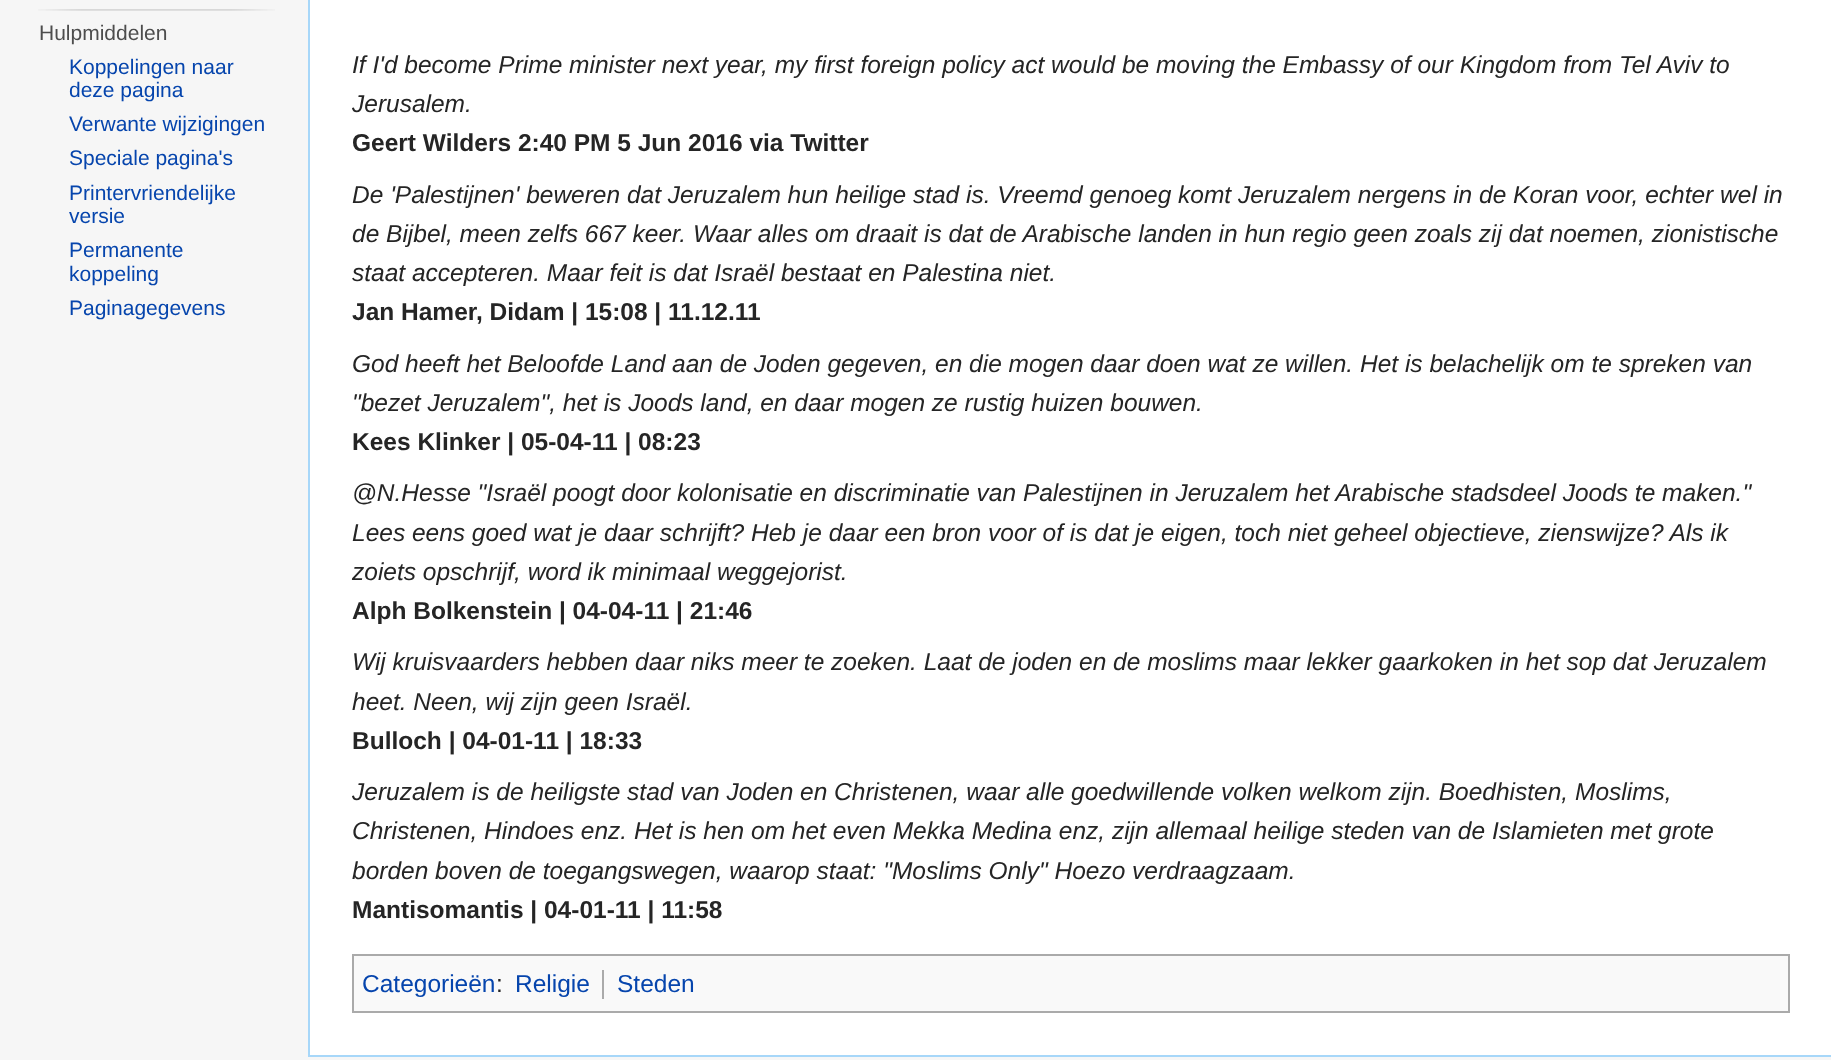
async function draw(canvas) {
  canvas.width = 1831;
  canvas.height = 1060;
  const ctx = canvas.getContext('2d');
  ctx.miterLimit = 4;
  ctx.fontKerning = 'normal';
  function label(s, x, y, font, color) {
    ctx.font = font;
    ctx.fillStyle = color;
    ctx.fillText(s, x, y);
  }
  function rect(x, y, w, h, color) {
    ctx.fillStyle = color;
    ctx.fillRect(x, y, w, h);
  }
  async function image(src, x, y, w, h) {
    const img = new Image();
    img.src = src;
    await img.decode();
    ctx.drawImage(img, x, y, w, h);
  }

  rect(0, 0, 1831, 1060, '#f6f6f6');
  await image('assets/img1.png', 38, 9, 237, 2);
  label('Hulpmiddelen', 39, 40, '21px Liberation Sans', '#4d4d4d');
  label('Koppelingen naar', 69, 74, '21px Liberation Sans', '#0645ad');
  label('deze pagina', 69, 97, '21px Liberation Sans', '#0645ad');
  label('Verwante wijzigingen', 69, 131, '21px Liberation Sans', '#0645ad');
  label('Speciale pagina\'s', 69, 165, '21px Liberation Sans', '#0645ad');
  label('Printervriendelijke', 69, 200, '21px Liberation Sans', '#0645ad');
  label('versie', 69, 223, '21px Liberation Sans', '#0645ad');
  label('Permanente', 69, 257, '21px Liberation Sans', '#0645ad');
  label('koppeling', 69, 281, '21px Liberation Sans', '#0645ad');
  label('Paginagegevens', 69, 315, '21px Liberation Sans', '#0645ad');
  rect(310, 0, 1521, 1055, '#fff');
  rect(308, 1055, 1523, 2, '#a7d7f9');
  rect(308, 0, 2, 1057, '#a7d7f9');
  label('If I\'d become Prime minister next year, my first foreign policy act would be moving the Embassy of our Kingdom from Tel Aviv to', 352, 73, 'italic 24.5px Liberation Sans', '#252525');
  label('Jerusalem.', 352, 112, 'italic 24.5px Liberation Sans', '#252525');
  label('Geert Wilders 2:40 PM 5 Jun 2016 via Twitter', 352, 151, 'bold 24.5px Liberation Sans', '#252525');
  label('De \'Palestijnen\' beweren dat Jeruzalem hun heilige stad is. Vreemd genoeg komt Jeruzalem nergens in de Koran voor, echter wel in', 352, 203, 'italic 24.5px Liberation Sans', '#252525');
  label('de Bijbel, meen zelfs 667 keer. Waar alles om draait is dat de Arabische landen in hun regio geen zoals zij dat noemen, zionistische', 352, 242, 'italic 24.5px Liberation Sans', '#252525');
  label('staat accepteren. Maar feit is dat Israël bestaat en Palestina niet.', 352, 281, 'italic 24.5px Liberation Sans', '#252525');
  label('Jan Hamer, Didam | 15:08 | 11.12.11', 352, 320, 'bold 24.5px Liberation Sans', '#252525');
  label('God heeft het Beloofde Land aan de Joden gegeven, en die mogen daar doen wat ze willen. Het is belachelijk om te spreken van', 352, 372, 'italic 24.5px Liberation Sans', '#252525');
  label('"bezet Jeruzalem", het is Joods land, en daar mogen ze rustig huizen bouwen.', 352, 411, 'italic 24.5px Liberation Sans', '#252525');
  label('Kees Klinker | 05-04-11 | 08:23', 352, 450, 'bold 24.5px Liberation Sans', '#252525');
  label('@N.Hesse "Israël poogt door kolonisatie en discriminatie van Palestijnen in Jeruzalem het Arabische stadsdeel Joods te maken."', 352, 501, 'italic 24.5px Liberation Sans', '#252525');
  label('Lees eens goed wat je daar schrijft? Heb je daar een bron voor of is dat je eigen, toch niet geheel objectieve, zienswijze? Als ik', 352, 541, 'italic 24.5px Liberation Sans', '#252525');
  label('zoiets opschrijf, word ik minimaal weggejorist.', 352, 580, 'italic 24.5px Liberation Sans', '#252525');
  label('Alph Bolkenstein | 04-04-11 | 21:46', 352, 619, 'bold 24.5px Liberation Sans', '#252525');
  label('Wij kruisvaarders hebben daar niks meer te zoeken. Laat de joden en de moslims maar lekker gaarkoken in het sop dat Jeruzalem', 352, 670, 'italic 24.5px Liberation Sans', '#252525');
  label('heet. Neen, wij zijn geen Israël.', 352, 710, 'italic 24.5px Liberation Sans', '#252525');
  label('Bulloch | 04-01-11 | 18:33', 352, 749, 'bold 24.5px Liberation Sans', '#252525');
  label('Jeruzalem is de heiligste stad van Joden en Christenen, waar alle goedwillende volken welkom zijn. Boedhisten, Moslims,', 352, 800, 'italic 24.5px Liberation Sans', '#252525');
  label('Christenen, Hindoes enz. Het is hen om het even Mekka Medina enz, zijn allemaal heilige steden van de Islamieten met grote', 352, 839, 'italic 24.5px Liberation Sans', '#252525');
  label('borden boven de toegangswegen, waarop staat: "Moslims Only" Hoezo verdraagzaam.', 352, 879, 'italic 24.5px Liberation Sans', '#252525');
  label('Mantisomantis | 04-01-11 | 11:58', 352, 918, 'bold 24.5px Liberation Sans', '#252525');
  ctx.fillStyle = '#f9f9f9';
  ctx.beginPath();
  ctx.rect(353, 955, 1436, 57);
  ctx.fill();
  ctx.strokeStyle = '#aaa';
  ctx.lineWidth = 2;
  ctx.stroke();
  label('Categorieën', 362, 992, '24.5px Liberation Sans', '#0645ad');
  label(':', 496, 992, '24.5px Liberation Sans', '#252525');
  label('Religie', 515, 992, '24.5px Liberation Sans', '#0645ad');
  rect(602, 970, 2, 29, '#aaa');
  label('Steden', 617, 992, '24.5px Liberation Sans', '#0645ad');
}

draw(document.querySelector('canvas'));
